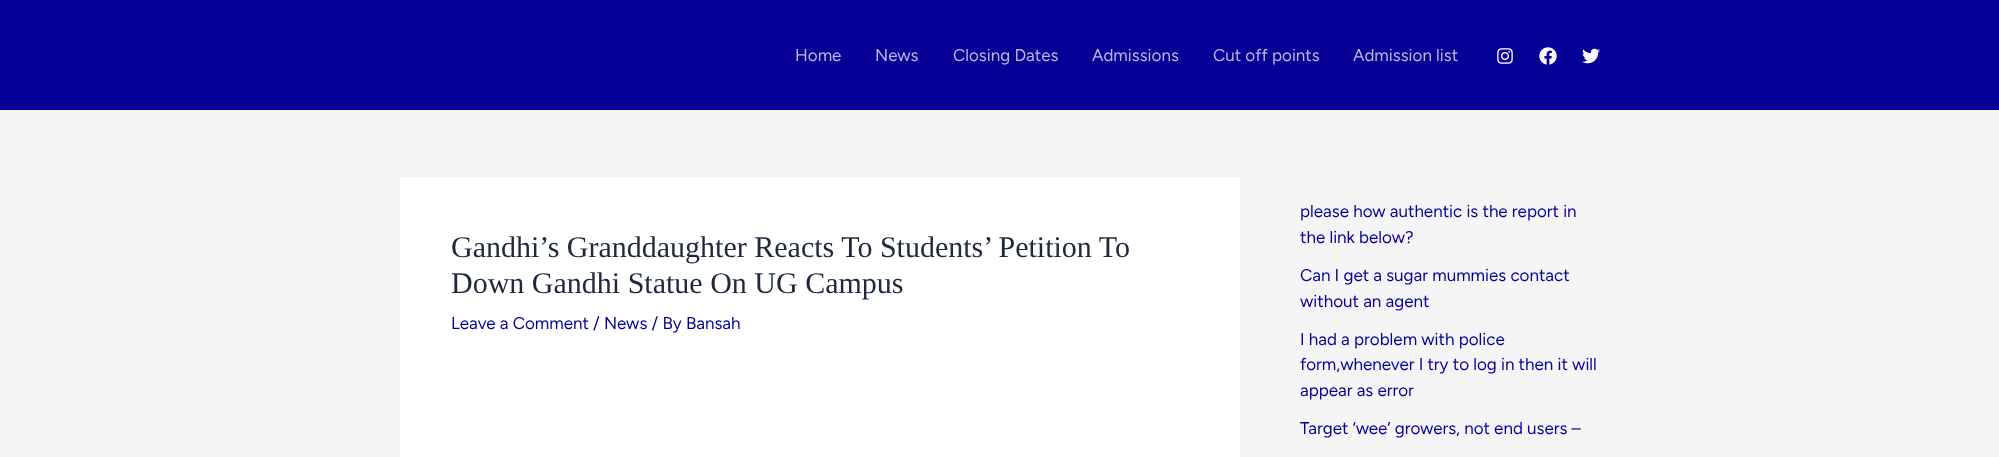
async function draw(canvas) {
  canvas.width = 1999;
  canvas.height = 457;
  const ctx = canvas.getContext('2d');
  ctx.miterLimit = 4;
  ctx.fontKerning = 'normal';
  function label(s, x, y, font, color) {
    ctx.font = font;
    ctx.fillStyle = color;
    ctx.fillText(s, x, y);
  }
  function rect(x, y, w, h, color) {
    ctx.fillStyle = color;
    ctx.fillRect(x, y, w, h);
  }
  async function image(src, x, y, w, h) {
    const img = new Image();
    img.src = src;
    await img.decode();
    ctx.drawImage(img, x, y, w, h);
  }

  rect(0, 0, 1999, 457, '#f5f5f5');
  rect(0, 0, 1999, 110, '#060097');
  label('Home', 795, 61, '17px Figtree', '#b9bae0');
  label('News', 875, 61, '17px Figtree', '#b9bae0');
  label('Closing Dates', 953, 61, '17px Figtree', '#b9bae0');
  label('Admissions', 1092, 61, '17px Figtree', '#b9bae0');
  label('Cut off points', 1213, 61, '17px Figtree', '#b9bae0');
  label('Admission list', 1353, 61, '17px Figtree', '#b9bae0');
  await image('assets/img1.png', 1497, 48, 16, 16);
  await image('assets/img2.png', 1539, 47, 18, 18);
  await image('assets/img3.png', 1582, 48, 18, 16);
  rect(400, 178, 840, 279, '#fff');
  label('Gandhi’s Granddaughter Reacts To Students’ Petition To', 451, 257, '30px Liberation Serif', '#1e293b');
  label('Down Gandhi Statue On UG Campus', 451, 293, '30px Liberation Serif', '#1e293b');
  label('Leave a Comment / News / By Bansah', 451, 329, '17px Figtree', '#060097');
  label('please how authentic is the report in', 1300, 217, '17px Figtree', '#060097');
  label('the link below?', 1300, 243, '17px Figtree', '#060097');
  label('Can I get a sugar mummies contact', 1300, 281, '17px Figtree', '#060097');
  label('without an agent', 1300, 307, '17px Figtree', '#060097');
  label('I had a problem with police', 1300, 345, '17px Figtree', '#060097');
  label('form,whenever I try to log in then it will', 1300, 370, '17px Figtree', '#060097');
  label('appear as error', 1300, 396, '17px Figtree', '#060097');
  label('Target ‘wee’ growers, not end users –', 1300, 434, '17px Figtree', '#060097');
}

draw(document.querySelector('canvas'));
